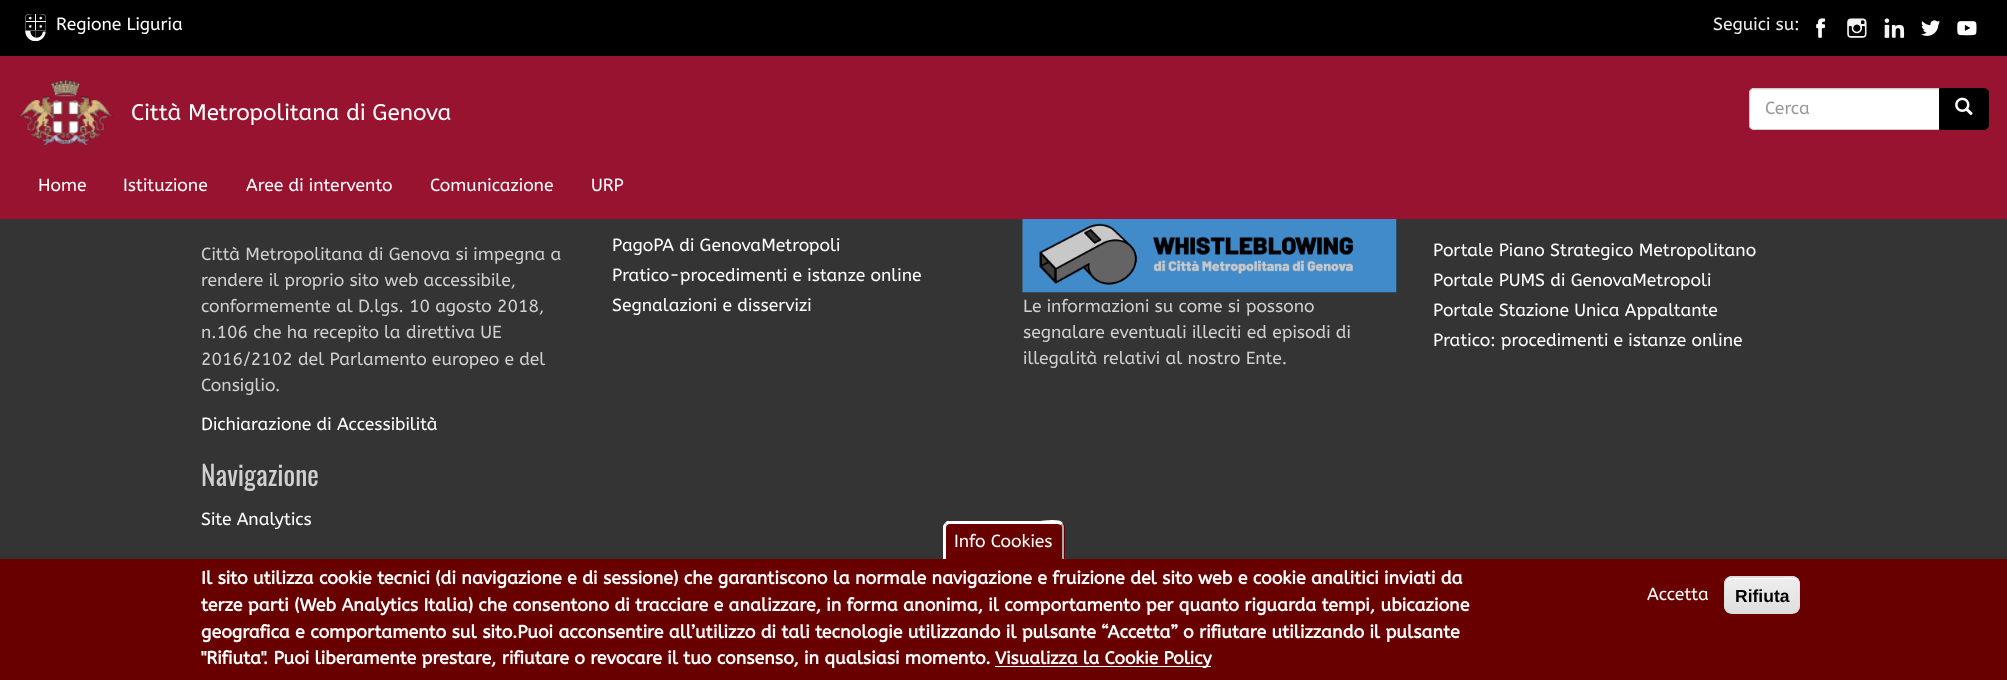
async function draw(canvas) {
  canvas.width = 2007;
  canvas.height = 680;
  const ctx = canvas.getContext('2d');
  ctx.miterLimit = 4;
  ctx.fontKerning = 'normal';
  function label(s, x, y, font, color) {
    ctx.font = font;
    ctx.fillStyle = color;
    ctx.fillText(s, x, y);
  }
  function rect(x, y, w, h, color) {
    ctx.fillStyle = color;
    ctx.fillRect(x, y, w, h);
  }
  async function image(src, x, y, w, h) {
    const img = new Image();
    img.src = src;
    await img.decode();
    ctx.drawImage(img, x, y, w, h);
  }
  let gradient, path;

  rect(0, 0, 2007, 680, '#343434');
  rect(0, 56, 2007, 163, '#97132f');
  rect(0, 0, 2007, 56, '#000');
  await image('assets/img1.png', 25, 14, 21, 27);
  label('Regione Liguria', 56, 30, '17.5px abeezee', '#fff');
  label('Seguici su:', 1713, 30, '17.5px abeezee', '#eee');
  await image('assets/img2.png', 1816, 18, 10, 20);
  await image('assets/img3.png', 1847, 18, 20, 20);
  await image('assets/img4.png', 1884, 18, 21, 20);
  await image('assets/img5.png', 1921, 20, 19, 16);
  await image('assets/img6.png', 1957, 21, 20, 15);
  await image('assets/img7.png', 18, 80, 95, 65);
  label('Città Metropolitana di Genova', 131, 120, '22.5px abeezee', '#fff');
  ctx.beginPath();
  ctx.roundRect(1749, 88, 191, 42, [5, 0, 0, 5]);
  ctx.fill();
  ctx.fillStyle = '#ececec';
  path = new Path2D('M1754 90H1939V89H1754C1751 89 1750 91 1750 94C1750 92 1752 90 1754 90Z');
  ctx.fill(path);
  ctx.beginPath();
  ctx.roundRect(1749.5, 88.5, 190, 41, [4.5, 0, 0, 4.5]);
  ctx.strokeStyle = '#ccc';
  ctx.stroke();
  label('Cerca', 1765, 114, '17.5px abeezee', '#999');
  ctx.fillStyle = '#000';
  ctx.beginPath();
  ctx.roundRect(1939.5, 88.5, 49, 41, [0, 4.5, 4.5, 0]);
  ctx.fill();
  ctx.strokeStyle = '#000';
  ctx.stroke();
  await image('assets/img8.png', 1955, 97, 18, 19);
  label('Home', 38, 191, '17.5px abeezee', '#fff');
  label('Istituzione', 123, 191, '17.5px abeezee', '#fff');
  label('Aree di intervento', 246, 191, '17.5px abeezee', '#fff');
  label('Comunicazione', 430, 191, '17.5px abeezee', '#fff');
  label('URP', 591, 191, '17.5px abeezee', '#fff');
  label('Città Metropolitana di Genova si impegna a', 201, 260, '17.5px abeezee', '#cfcfcf');
  label('rendere il proprio sito web accessibile,', 201, 286, '17.5px abeezee', '#cfcfcf');
  label('conformemente al D.lgs. 10 agosto 2018,', 201, 312, '17.5px abeezee', '#cfcfcf');
  label('n.106 che ha recepito la direttiva UE', 201, 338, '17.5px abeezee', '#cfcfcf');
  label('2016/2102 del Parlamento europeo e del', 201, 365, '17.5px abeezee', '#cfcfcf');
  label('Consiglio.', 201, 391, '17.5px abeezee', '#cfcfcf');
  label('Dichiarazione di Accessibilità', 201, 430, '17.5px abeezee', '#fff');
  label('Navigazione', 201, 486, '27.5px Oswald', '#cfcfcf');
  label('Site Analytics', 201, 525, '17.5px abeezee', '#fff');
  label('PagoPA di GenovaMetropoli', 612, 251, '17.5px abeezee', '#fff');
  label('Pratico-procedimenti e istanze online', 612, 281, '17.5px abeezee', '#fff');
  label('Segnalazioni e disservizi', 612, 311, '17.5px abeezee', '#fff');
  await image('assets/img9.png', 1022, 219, 375, 74);
  label('Le informazioni su come si possono', 1023, 312, '17.5px abeezee', '#cfcfcf');
  label('segnalare eventuali illeciti ed episodi di', 1023, 338, '17.5px abeezee', '#cfcfcf');
  label('illegalità relativi al nostro Ente.', 1023, 364, '17.5px abeezee', '#cfcfcf');
  label('Portale Piano Strategico Metropolitano', 1433, 256, '17.5px abeezee', '#fff');
  label('Portale PUMS di GenovaMetropoli', 1433, 286, '17.5px abeezee', '#fff');
  label('Portale Stazione Unica Appaltante', 1433, 316, '17.5px abeezee', '#fff');
  label('Pratico: procedimenti e istanze online', 1433, 346, '17.5px abeezee', '#fff');
  rect(0, 559, 2007, 121, '#690000');
  ctx.beginPath();
  ctx.roundRect(944, 521, 121, 38, [6, 6, 0, 0]);
  ctx.fill();
  ctx.fillStyle = '#fff';
  path = new Path2D('M949 524L947 525L945 523L947 521H1041C1044 521 1059 518 1063 523L1061 525L1058 524Z');
  ctx.fill(path);
  ctx.fillStyle = '#aaa';
  path = new Path2D('M1062 559V528C1062 526.5 1061.5 525.5 1061 525L1062.5 523C1063.5 524.5 1064 526 1064 528V559Z');
  ctx.fill(path);
  ctx.fillStyle = '#fff';
  path = new Path2D('M943 559V526C943.5 525 944 524 945 523L947 525C946.5 525.5 946 526.5 946 528V559Z');
  ctx.fill(path);
  label('Info Cookies', 954, 547, '17.5px abeezee', '#fff');
  label('Il sito utilizza cookie tecnici (di navigazione e di sessione) che garantiscono la normale navigazione e fruizione del sito web e cookie analitici inviati da', 201, 584, 'bold 17.85px abeezee', '#fff');
  label('terze parti (Web Analytics Italia) che consentono di tracciare e analizzare, in forma anonima, il comportamento per quanto riguarda tempi, ubicazione', 201, 611, 'bold 17.85px abeezee', '#fff');
  label('geografica e comportamento sul sito.Puoi acconsentire all’utilizzo di tali tecnologie utilizzando il pulsante “Accetta” o rifiutare utilizzando il pulsante', 201, 638, 'bold 17.85px abeezee', '#fff');
  label('"Rifiuta". Puoi liberamente prestare, rifiutare o revocare il tuo consenso, in qualsiasi momento.', 201, 664, 'bold 17.85px abeezee', '#fff');
  rect(995, 666, 216, 1, '#fff');
  label('Visualizza la Cookie Policy', 995, 664, 'bold 17.5px abeezee', '#fff');
  label('Accetta', 1647, 600, '17.5px abeezee', '#fff');
  ctx.save();
  ctx.beginPath();
  ctx.roundRect(1724, 576, 76, 38, 8);
  ctx.clip();
  gradient = ctx.createLinearGradient(1762, 543, 1762, 578);
  gradient.addColorStop(0.05, '#ededed');
  gradient.addColorStop(1, '#dfdfdf');
  ctx.fillStyle = gradient;
  ctx.fillRect(1724, 576, 76, 2);
  gradient = ctx.createLinearGradient(1762, 578, 1762, 613);
  gradient.addColorStop(0.05, '#ededed');
  gradient.addColorStop(1, '#dfdfdf');
  ctx.fillStyle = gradient;
  ctx.fillRect(1724, 578, 76, 35);
  ctx.restore();
  path = new Path2D('M1731 579H1792C1796 579 1799 582 1799 585C1799 576 1789 578 1783 578H1741C1735 578 1725 576 1725 585C1725 582 1728 579 1731 579Z');
  ctx.fill(path);
  ctx.beginPath();
  ctx.roundRect(1724.5, 576.5, 75, 37, 7.5);
  ctx.strokeStyle = '#dcdcdc';
  ctx.stroke();
  label('Rifiuta', 1735, 602, 'bold 17.5px Liberation Sans', '#000');
}

draw(document.querySelector('canvas'));
